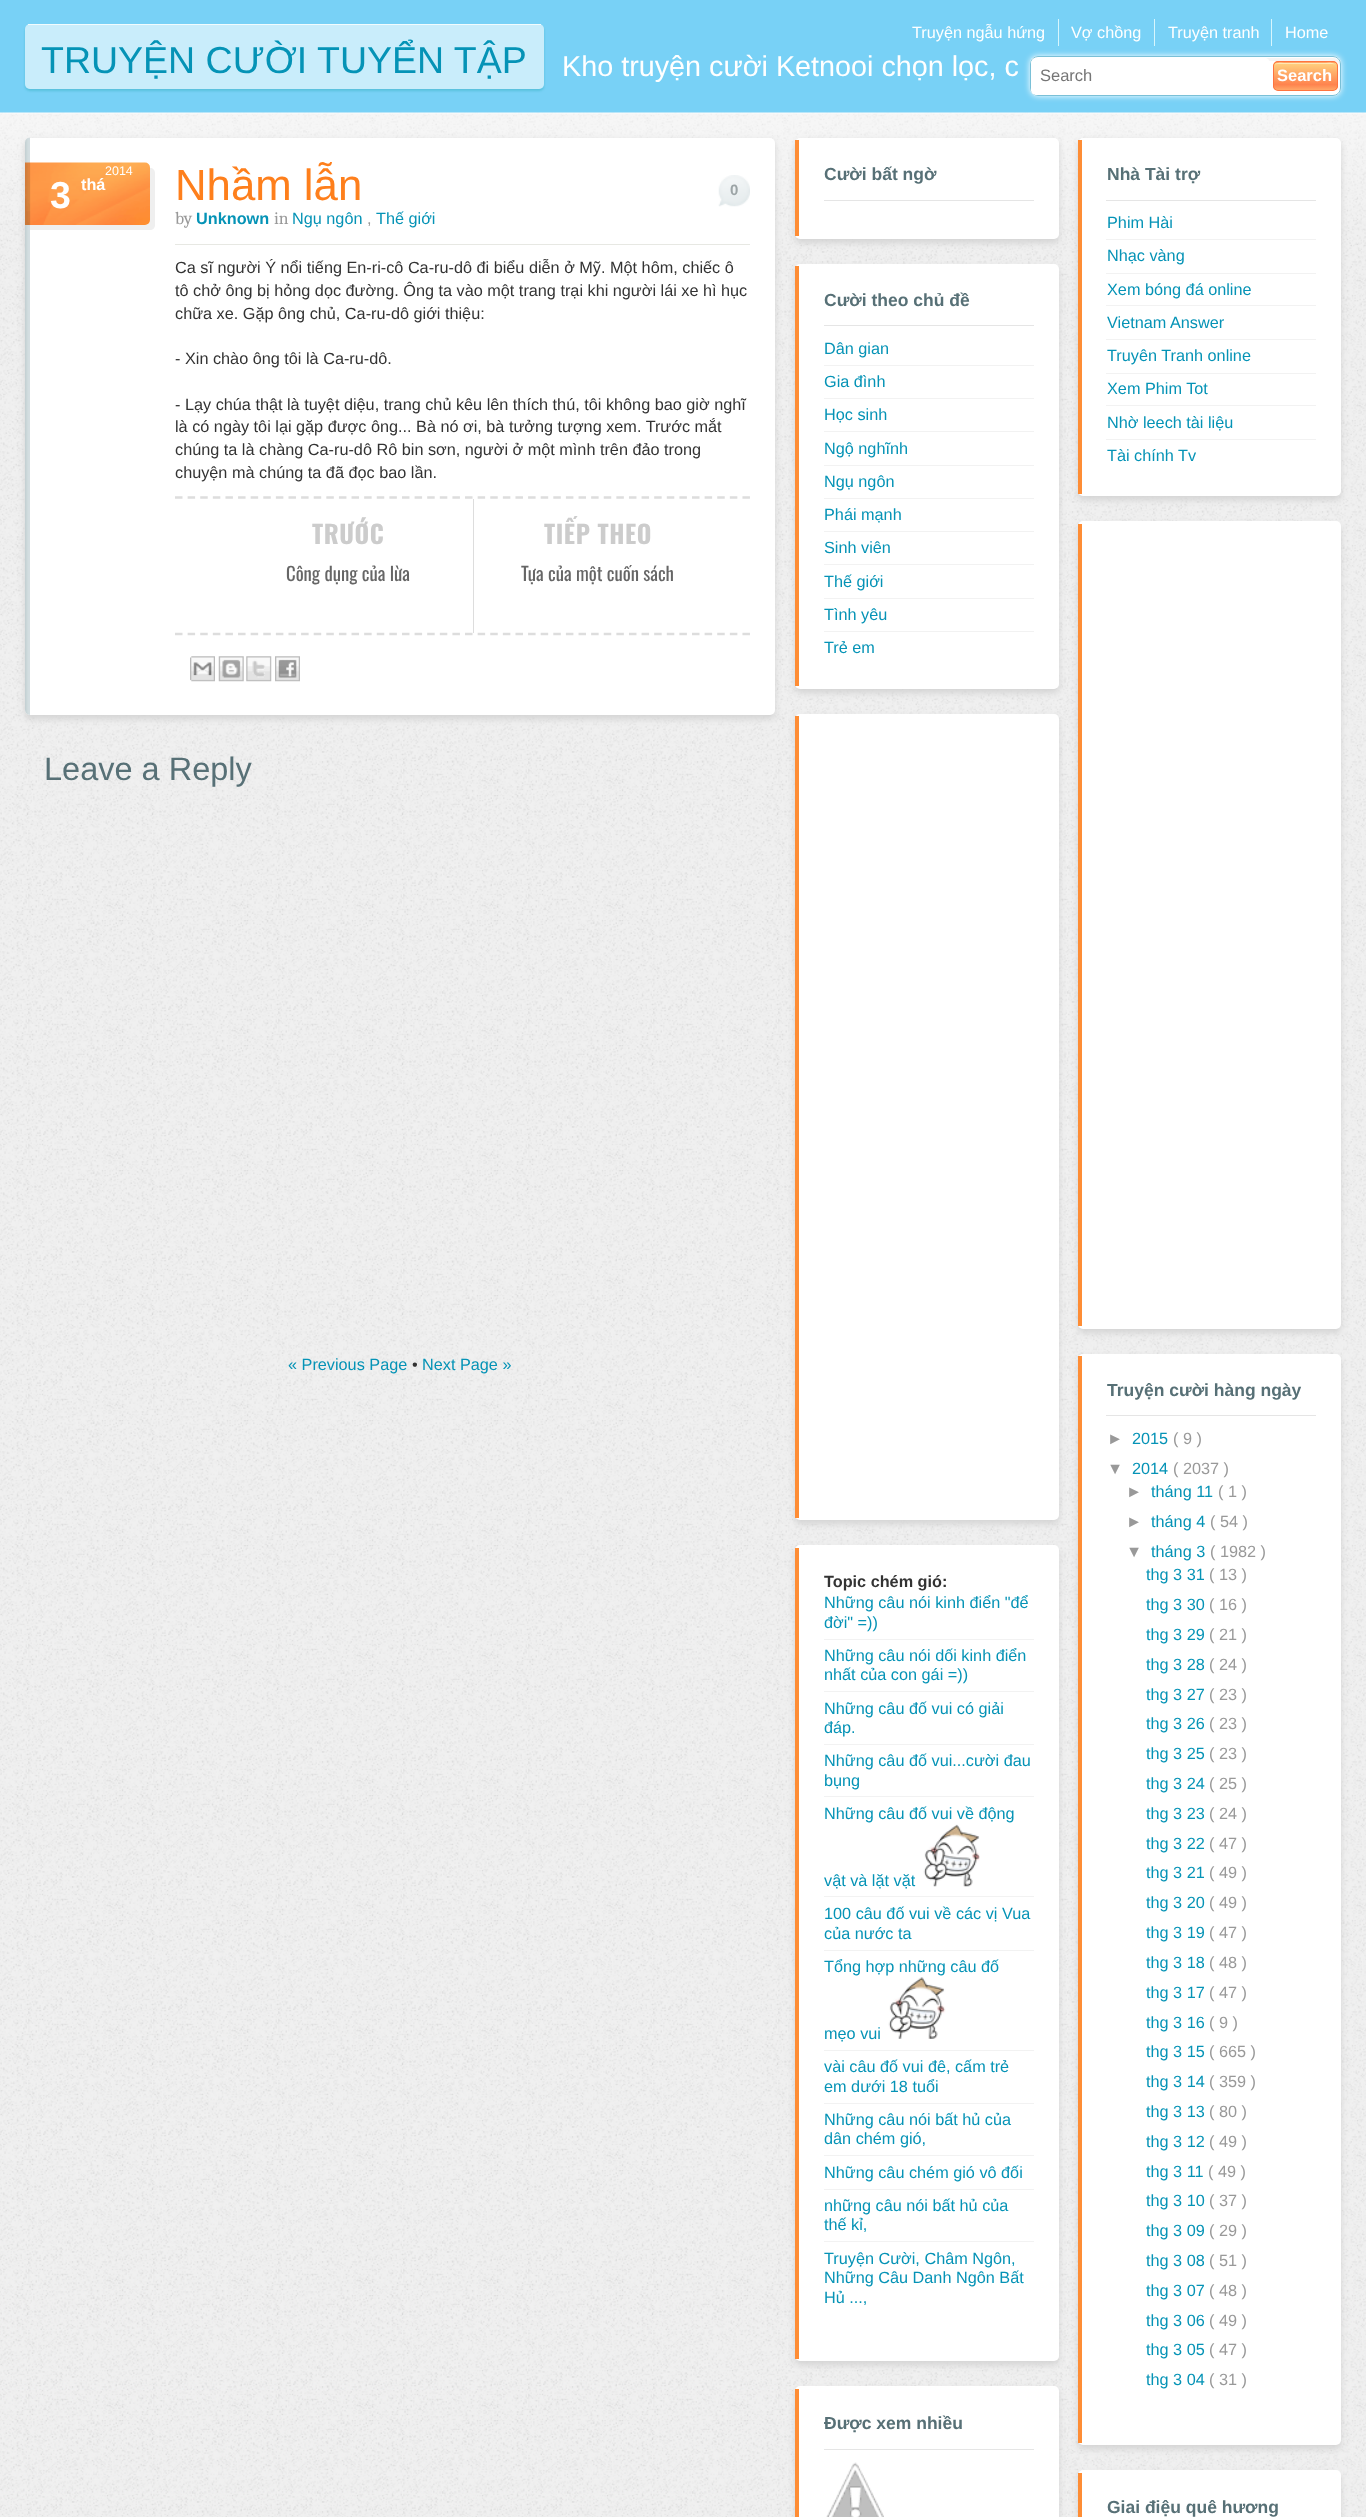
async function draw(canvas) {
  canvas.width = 1366;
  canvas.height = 2517;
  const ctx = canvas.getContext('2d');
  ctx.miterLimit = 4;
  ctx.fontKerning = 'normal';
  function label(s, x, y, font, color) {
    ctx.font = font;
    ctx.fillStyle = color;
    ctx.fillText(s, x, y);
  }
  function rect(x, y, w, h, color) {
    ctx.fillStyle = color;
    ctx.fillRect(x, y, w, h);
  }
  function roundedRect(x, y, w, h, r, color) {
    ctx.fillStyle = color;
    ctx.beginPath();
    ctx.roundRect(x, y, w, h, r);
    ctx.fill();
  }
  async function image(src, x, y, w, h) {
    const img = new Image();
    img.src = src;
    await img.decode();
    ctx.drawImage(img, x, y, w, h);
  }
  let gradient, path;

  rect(0, 0, 1366, 2517, '#fff');
  await image('assets/img1.png', 0, 250, 1366, 2267);
  rect(0, 0, 1366, 113, '#78d1f6');
  label('Truyện ngẫu hứng', 912, 38, '16.25px Liberation Sans', '#fff');
  rect(1058, 19, 1, 27, '#d7f6fd');
  label('Vợ chồng', 1071, 38, '16.25px Liberation Sans', '#fff');
  rect(1154, 19, 1, 27, '#d7f6fd');
  label('Truyện tranh', 1168, 38, '16.25px Liberation Sans', '#fff');
  rect(1271, 19, 1, 27, '#d7f6fd');
  label('Home', 1285, 38, '16.25px Liberation Sans', '#fff');
  ctx.save();
  path = new Path2D('M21 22H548V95H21ZM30 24H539C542 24 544 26 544 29V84C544 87 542 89 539 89H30C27 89 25 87 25 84V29C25 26 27 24 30 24Z');
  ctx.clip(path, 'evenodd');
  ctx.fillStyle = '#58c1dc';
  ctx.filter = 'blur(1px)';
  ctx.beginPath();
  ctx.roundRect(25, 26, 519, 65, 5);
  ctx.fill();
  ctx.filter = 'none';
  ctx.restore();
  roundedRect(25, 24, 519, 65, 5, '#ffffff99');
  rect(28, 24, 513, 1, '#f1fcfe');
  label('TRUYỆN CƯỜI TUYỂN TẬP', 41, 73, '37.5px Liberation Sans', '#0593b6');
  label('Kho truyện cười Ketnooi chọn lọc, c', 562, 76, '28.75px Liberation Sans', '#fff');
  ctx.filter = 'blur(3px)';
  ctx.beginPath();
  ctx.roundRect(1030, 56, 311, 40, 8);
  ctx.fill();
  ctx.filter = 'none';
  roundedRect(1030, 56, 311, 40, 8, '#fff');
  ctx.fillStyle = '#f5f5f5';
  path = new Path2D('M1038 61H1334C1337 61 1340 64 1340 68V64C1340 61 1337 58 1334 58H1037C1034 58 1031 61 1031 64V68C1031 64 1034 61 1038 61Z');
  ctx.fill(path);
  ctx.beginPath();
  ctx.roundRect(1030.5, 56.5, 310, 39, 7.5);
  ctx.strokeStyle = '#7ac0d7';
  ctx.stroke();
  roundedRect(1031, 58, 239, 37, 5, '#fff');
  label('Search', 1040, 81, '16.5px Liberation Sans', '#757575');
  ctx.save();
  ctx.beginPath();
  ctx.roundRect(1273, 61, 65, 30, 5);
  ctx.clip();
  gradient = ctx.createLinearGradient(1274, 35, 1274, 63);
  gradient.addColorStop(0, '#ffd17f');
  gradient.addColorStop(0.8, '#ff834e');
  gradient.addColorStop(1, '#ffa767');
  ctx.fillStyle = gradient;
  ctx.fillRect(1273, 61, 65, 2);
  gradient = ctx.createLinearGradient(1274, 63, 1274, 90);
  gradient.addColorStop(0, '#ffd17f');
  gradient.addColorStop(0.8, '#ff834e');
  gradient.addColorStop(1, '#ffa767');
  ctx.fillStyle = gradient;
  ctx.fillRect(1273, 63, 65, 27);
  ctx.restore();
  ctx.fillStyle = '#ffe8b5';
  path = new Path2D('M1278 64H1332C1335 64 1336 65 1336 68C1336 61 1328 63 1323 63H1287C1282 63 1274 61 1274 68C1274 65 1275 64 1278 64Z');
  ctx.fill(path);
  ctx.beginPath();
  ctx.roundRect(1273.5, 61.5, 64, 29, 4.5);
  ctx.strokeStyle = '#ff743f';
  ctx.stroke();
  label('Search', 1277, 81, 'bold 16.5px Liberation Sans', '#fff');
  await image('assets/img2.png', 0, 112, 1366, 138);
  ctx.fillStyle = '#d4d4d4';
  ctx.filter = 'blur(3px)';
  ctx.beginPath();
  ctx.roundRect(25, 141, 750, 578, 5);
  ctx.fill();
  ctx.filter = 'none';
  roundedRect(25, 138, 750, 577, 5, '#fff');
  await image('assets/img3.png', 25, 137, 5, 578);
  label('Nhầm lẫn', 175, 200, '43.75px Liberation Sans', '#fe7f1c');
  rect(175, 244, 575, 1, '#e7e8e3');
  ctx.fillStyle = '#efefef';
  path = new Path2D('M30 225V230H150C153 230 155 228 155 225V173C155 170 153 168 150 168V220C150 223 148 225 145 225Z');
  ctx.fill(path);
  await image('assets/img4.png', 25, 162, 125, 63);
  label('2014', 105, 175, '12.5px Liberation Sans', '#fff');
  label('3', 50, 208, 'bold 37.5px Liberation Sans', '#fff');
  label('thá', 81, 190, 'bold 16.25px Liberation Sans', '#fff');
  await image('assets/img5.png', 718, 175, 32, 32);
  label('0', 730, 195, 'bold 15px Liberation Sans', '#9ca4a6');
  label('by', 175, 224, '17.5px Caladea', '#999');
  label('Unknown', 196, 224, 'bold 16.25px Liberation Sans', '#0593b6');
  label('in', 274, 224, '17.5px Caladea', '#999');
  label('Ngụ ngôn', 292, 224, '16.25px Liberation Sans', '#0593b6');
  label(',', 367, 224, '16.25px Liberation Sans', '#999');
  label('Thế giới', 376, 224, '16.25px Liberation Sans', '#0593b6');
  label('Ca sĩ người Ý nổi tiếng En-ri-cô Ca-ru-dô đi biểu diễn ở Mỹ. Một hôm, chiếc ô', 175, 273, '16.25px Liberation Sans', '#333');
  label('tô chở ông bị hỏng dọc đường. Ông ta vào một trang trại khi người lái xe hì hục', 175, 296, '16.25px Liberation Sans', '#333');
  label('chữa xe. Gặp ông chủ, Ca-ru-dô giới thiệu:', 175, 319, '16.25px Liberation Sans', '#333');
  label('- Xin chào ông tôi là Ca-ru-dô.', 175, 364, '16.25px Liberation Sans', '#333');
  label('- Lạy chúa thật là tuyệt diệu, trang chủ kêu lên thích thú, tôi không bao giờ nghĩ', 175, 410, '16.25px Liberation Sans', '#333');
  label('là có ngày tôi lại gặp được ông... Bà nó ơi, bà tưởng tượng xem. Trước mắt', 175, 432, '16.25px Liberation Sans', '#333');
  label('chúng ta là chàng Ca-ru-dô Rô bin sơn, người ở một mình trên đảo trong', 175, 455, '16.25px Liberation Sans', '#333');
  label('chuyện mà chúng ta đã đọc bao lần.', 175, 478, '16.25px Liberation Sans', '#333');
  path = new Path2D('M175 497.5H750');
  ctx.strokeStyle = '#ddd';
  ctx.lineWidth = 2.5;
  ctx.setLineDash([7.5, 5.11]);
  ctx.stroke(path);
  path = new Path2D('M175 634H750');
  ctx.stroke(path);
  rect(473, 499, 1, 134, '#ddd');
  ctx.letterSpacing = '0.6px';
  label('TRƯỚC', 312, 544, 'bold 25px Oswald', '#ccc');
  ctx.letterSpacing = '0px';
  label('Công dụng của lừa', 286, 581, '18.75px Oswald', '#666');
  ctx.letterSpacing = '0.6px';
  label('TIẾP THEO', 544, 544, 'bold 25px Oswald', '#ccc');
  ctx.letterSpacing = '0px';
  label('Tựa của một cuốn sách', 521, 581, '18.75px Oswald', '#666');
  await image('assets/img6.png', 190, 656, 25, 26);
  await image('assets/img7.png', 218, 656, 26, 26);
  await image('assets/img8.png', 246, 656, 26, 26);
  await image('assets/img9.png', 275, 656, 25, 26);
  label('Leave a Reply', 44, 780, '32.5px Liberation Sans', '#577076');
  label('« Previous Page', 288, 1370, '16.25px Liberation Sans', '#0593b6');
  label('•', 412, 1370, '16.25px Liberation Sans', '#333');
  label('Next Page »', 422, 1370, '16.25px Liberation Sans', '#0593b6');
  ctx.fillStyle = '#d4d4d4';
  ctx.filter = 'blur(3px)';
  ctx.beginPath();
  ctx.roundRect(795, 141, 264, 102, 5);
  ctx.fill();
  ctx.filter = 'none';
  roundedRect(795, 138, 264, 101, 5, '#fff');
  rect(795, 140, 4, 96, '#fe8d35');
  rect(824, 200, 210, 1, '#e5e5e5');
  label('Cười bất ngờ', 824, 180, 'bold 17.5px Liberation Sans', '#577076');
  ctx.fillStyle = '#d4d4d4';
  ctx.filter = 'blur(3px)';
  ctx.beginPath();
  ctx.roundRect(795, 268, 264, 425, 5);
  ctx.fill();
  ctx.filter = 'none';
  roundedRect(795, 264, 264, 425, 5, '#fff');
  rect(795, 266, 4, 420, '#fe8d35');
  rect(824, 325, 210, 1, '#e5e5e5');
  label('Cười theo chủ đề', 824, 306, 'bold 17.5px Liberation Sans', '#577076');
  label('Dân gian', 824, 354, '16.25px Liberation Sans', '#0593b6');
  rect(824, 365, 210, 1, '#f2f2f2');
  label('Gia đình', 824, 387, '16.25px Liberation Sans', '#0593b6');
  rect(824, 398, 210, 1, '#f2f2f2');
  label('Học sinh', 824, 420, '16.25px Liberation Sans', '#0593b6');
  rect(824, 431, 210, 1, '#f2f2f2');
  label('Ngộ nghĩnh', 824, 454, '16.25px Liberation Sans', '#0593b6');
  rect(824, 465, 210, 1, '#f2f2f2');
  label('Ngụ ngôn', 824, 487, '16.25px Liberation Sans', '#0593b6');
  rect(824, 498, 210, 1, '#f2f2f2');
  label('Phái mạnh', 824, 520, '16.25px Liberation Sans', '#0593b6');
  rect(824, 531, 210, 1, '#f2f2f2');
  label('Sinh viên', 824, 553, '16.25px Liberation Sans', '#0593b6');
  rect(824, 564, 210, 1, '#f2f2f2');
  label('Thế giới', 824, 587, '16.25px Liberation Sans', '#0593b6');
  rect(824, 598, 210, 1, '#f2f2f2');
  label('Tình yêu', 824, 620, '16.25px Liberation Sans', '#0593b6');
  rect(824, 631, 210, 1, '#f2f2f2');
  label('Trẻ em', 824, 653, '16.25px Liberation Sans', '#0593b6');
  ctx.fillStyle = '#d4d4d4';
  ctx.filter = 'blur(3px)';
  ctx.beginPath();
  ctx.roundRect(795, 718, 264, 806, 5);
  ctx.fill();
  ctx.filter = 'none';
  roundedRect(795, 714, 264, 806, 5, '#fff');
  rect(795, 716, 4, 802, '#fe8d35');
  ctx.fillStyle = '#d4d4d4';
  ctx.filter = 'blur(3px)';
  ctx.beginPath();
  ctx.roundRect(795, 1549, 264, 816, 5);
  ctx.fill();
  ctx.filter = 'none';
  roundedRect(795, 1545, 264, 816, 5, '#fff');
  rect(795, 1548, 4, 811, '#fe8d35');
  label('Topic chém gió:', 824, 1587, 'bold 16.25px Liberation Sans', '#333');
  label('Những câu nói kinh điển "để', 824, 1608, '16.25px Liberation Sans', '#0593b6');
  label('đời" =))', 824, 1628, '16.25px Liberation Sans', '#0593b6');
  rect(824, 1639, 210, 1, '#f2f2f2');
  label('Những câu nói dối kinh điển', 824, 1661, '16.25px Liberation Sans', '#0593b6');
  label('nhất của con gái =))', 824, 1680, '16.25px Liberation Sans', '#0593b6');
  rect(824, 1691, 210, 1, '#f2f2f2');
  label('Những câu đố vui có giải', 824, 1714, '16.25px Liberation Sans', '#0593b6');
  label('đáp.', 824, 1733, '16.25px Liberation Sans', '#0593b6');
  rect(824, 1744, 210, 1, '#f2f2f2');
  label('Những câu đố vui...cười đau', 824, 1766, '16.25px Liberation Sans', '#0593b6');
  label('bụng', 824, 1786, '16.25px Liberation Sans', '#0593b6');
  rect(824, 1796, 210, 1, '#f2f2f2');
  label('Những câu đố vui về động', 824, 1819, '16.25px Liberation Sans', '#0593b6');
  label('vật và lặt vặt', 824, 1886, '16.25px Liberation Sans', '#0593b6');
  await image('assets/img10.png', 923, 1824, 57, 63);
  rect(824, 1896, 210, 1, '#f2f2f2');
  label('100 câu đố vui về các vị Vua', 824, 1919, '16.25px Liberation Sans', '#0593b6');
  label('của nước ta', 824, 1939, '16.25px Liberation Sans', '#0593b6');
  rect(824, 1950, 210, 1, '#f2f2f2');
  label('Tổng hợp những câu đố', 824, 1972, '16.25px Liberation Sans', '#0593b6');
  label('mẹo vui', 824, 2039, '16.25px Liberation Sans', '#0593b6');
  await image('assets/img11.png', 888, 1977, 58, 62);
  rect(824, 2050, 210, 1, '#f2f2f2');
  label('vài câu đố vui đê, cấm trẻ', 824, 2072, '16.25px Liberation Sans', '#0593b6');
  label('em dưới 18 tuổi', 824, 2092, '16.25px Liberation Sans', '#0593b6');
  rect(824, 2103, 210, 1, '#f2f2f2');
  label('Những câu nói bất hủ của', 824, 2125, '16.25px Liberation Sans', '#0593b6');
  label('dân chém gió,', 824, 2144, '16.25px Liberation Sans', '#0593b6');
  rect(824, 2155, 210, 1, '#f2f2f2');
  label('Những câu chém gió vô đối', 824, 2178, '16.25px Liberation Sans', '#0593b6');
  rect(824, 2189, 210, 1, '#f2f2f2');
  label('những câu nói bất hủ của', 824, 2211, '16.25px Liberation Sans', '#0593b6');
  label('thế kỉ,', 824, 2230, '16.25px Liberation Sans', '#0593b6');
  rect(824, 2241, 210, 1, '#f2f2f2');
  label('Truyện Cười, Châm Ngôn,', 824, 2264, '16.25px Liberation Sans', '#0593b6');
  label('Những Câu Danh Ngôn Bất', 824, 2283, '16.25px Liberation Sans', '#0593b6');
  label('Hủ ...,', 824, 2303, '16.25px Liberation Sans', '#0593b6');
  ctx.fillStyle = '#d4d4d4';
  ctx.filter = 'blur(3px)';
  ctx.beginPath();
  ctx.roundRect(795, 2390, 264, 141, 5);
  ctx.fill();
  ctx.filter = 'none';
  roundedRect(795, 2386, 264, 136, 5, '#fff');
  rect(795, 2389, 4, 128, '#fe8d35');
  rect(824, 2449, 210, 1, '#e5e5e5');
  label('Được xem nhiều', 824, 2429, 'bold 17.5px Liberation Sans', '#577076');
  await image('assets/img12.png', 826, 2462, 58, 55);
  ctx.fillStyle = '#d4d4d4';
  ctx.filter = 'blur(3px)';
  ctx.beginPath();
  ctx.roundRect(1078, 141, 263, 359, 5);
  ctx.fill();
  ctx.filter = 'none';
  roundedRect(1078, 138, 263, 358, 5, '#fff');
  rect(1078, 140, 4, 354, '#fe8d35');
  rect(1106, 200, 210, 1, '#e5e5e5');
  label('Nhà Tài trợ', 1107, 180, 'bold 17.5px Liberation Sans', '#577076');
  label('Phim Hài', 1107, 228, '16.25px Liberation Sans', '#0593b6');
  rect(1106, 239, 210, 1, '#f2f2f2');
  label('Nhạc vàng', 1107, 261, '16.25px Liberation Sans', '#0593b6');
  rect(1106, 273, 210, 1, '#f2f2f2');
  label('Xem bóng đá online', 1107, 295, '16.25px Liberation Sans', '#0593b6');
  rect(1106, 305, 210, 1, '#f2f2f2');
  label('Vietnam Answer', 1107, 328, '16.25px Liberation Sans', '#0593b6');
  rect(1106, 339, 210, 1, '#f2f2f2');
  label('Truyên Tranh online', 1107, 361, '16.25px Liberation Sans', '#0593b6');
  rect(1106, 373, 210, 1, '#f2f2f2');
  label('Xem Phim Tot', 1107, 394, '16.25px Liberation Sans', '#0593b6');
  rect(1106, 405, 210, 1, '#f2f2f2');
  label('Nhờ leech tài liệu', 1107, 428, '16.25px Liberation Sans', '#0593b6');
  rect(1106, 439, 210, 1, '#f2f2f2');
  label('Tài chính Tv', 1107, 461, '16.25px Liberation Sans', '#0593b6');
  ctx.fillStyle = '#d4d4d4';
  ctx.filter = 'blur(3px)';
  ctx.beginPath();
  ctx.roundRect(1078, 525, 263, 808, 5);
  ctx.fill();
  ctx.filter = 'none';
  roundedRect(1078, 521, 263, 808, 5, '#fff');
  rect(1078, 524, 4, 802, '#fe8d35');
  ctx.fillStyle = '#d4d4d4';
  ctx.filter = 'blur(3px)';
  ctx.beginPath();
  ctx.roundRect(1078, 1358, 263, 1091, 5);
  ctx.fill();
  ctx.filter = 'none';
  roundedRect(1078, 1354, 263, 1091, 5, '#fff');
  rect(1078, 1356, 4, 1087, '#fe8d35');
  rect(1106, 1415, 210, 1, '#e5e5e5');
  label('Truyện cười hàng ngày', 1107, 1396, 'bold 17.5px Liberation Sans', '#577076');
  label('►', 1107, 1444, '16.25px Liberation Sans', '#999');
  label('2015', 1132, 1444, '16.25px Liberation Sans', '#0593b6');
  label('( 9 )', 1173, 1444, '16.25px Liberation Sans', '#999');
  label('▼', 1107, 1474, '16.25px Liberation Sans', '#999');
  label('2014', 1132, 1474, '16.25px Liberation Sans', '#0593b6');
  label('( 2037 )', 1173, 1474, '16.25px Liberation Sans', '#999');
  label('►', 1126, 1497, '16.25px Liberation Sans', '#999');
  label('tháng 11', 1151, 1497, '16.25px Liberation Sans', '#0593b6');
  label('( 1 )', 1218, 1497, '16.25px Liberation Sans', '#999');
  label('►', 1126, 1527, '16.25px Liberation Sans', '#999');
  label('tháng 4', 1151, 1527, '16.25px Liberation Sans', '#0593b6');
  label('( 54 )', 1210, 1527, '16.25px Liberation Sans', '#999');
  label('▼', 1126, 1557, '16.25px Liberation Sans', '#999');
  label('tháng 3', 1151, 1557, '16.25px Liberation Sans', '#0593b6');
  label('( 1982 )', 1210, 1557, '16.25px Liberation Sans', '#999');
  label('thg 3 31', 1146, 1580, '16.25px Liberation Sans', '#0593b6');
  label('( 13 )', 1209, 1580, '16.25px Liberation Sans', '#999');
  label('thg 3 30', 1146, 1610, '16.25px Liberation Sans', '#0593b6');
  label('( 16 )', 1209, 1610, '16.25px Liberation Sans', '#999');
  label('thg 3 29', 1146, 1640, '16.25px Liberation Sans', '#0593b6');
  label('( 21 )', 1209, 1640, '16.25px Liberation Sans', '#999');
  label('thg 3 28', 1146, 1670, '16.25px Liberation Sans', '#0593b6');
  label('( 24 )', 1209, 1670, '16.25px Liberation Sans', '#999');
  label('thg 3 27', 1146, 1700, '16.25px Liberation Sans', '#0593b6');
  label('( 23 )', 1209, 1700, '16.25px Liberation Sans', '#999');
  label('thg 3 26', 1146, 1729, '16.25px Liberation Sans', '#0593b6');
  label('( 23 )', 1209, 1729, '16.25px Liberation Sans', '#999');
  label('thg 3 25', 1146, 1759, '16.25px Liberation Sans', '#0593b6');
  label('( 23 )', 1209, 1759, '16.25px Liberation Sans', '#999');
  label('thg 3 24', 1146, 1789, '16.25px Liberation Sans', '#0593b6');
  label('( 25 )', 1209, 1789, '16.25px Liberation Sans', '#999');
  label('thg 3 23', 1146, 1819, '16.25px Liberation Sans', '#0593b6');
  label('( 24 )', 1209, 1819, '16.25px Liberation Sans', '#999');
  label('thg 3 22', 1146, 1849, '16.25px Liberation Sans', '#0593b6');
  label('( 47 )', 1209, 1849, '16.25px Liberation Sans', '#999');
  label('thg 3 21', 1146, 1878, '16.25px Liberation Sans', '#0593b6');
  label('( 49 )', 1209, 1878, '16.25px Liberation Sans', '#999');
  label('thg 3 20', 1146, 1908, '16.25px Liberation Sans', '#0593b6');
  label('( 49 )', 1209, 1908, '16.25px Liberation Sans', '#999');
  label('thg 3 19', 1146, 1938, '16.25px Liberation Sans', '#0593b6');
  label('( 47 )', 1209, 1938, '16.25px Liberation Sans', '#999');
  label('thg 3 18', 1146, 1968, '16.25px Liberation Sans', '#0593b6');
  label('( 48 )', 1209, 1968, '16.25px Liberation Sans', '#999');
  label('thg 3 17', 1146, 1998, '16.25px Liberation Sans', '#0593b6');
  label('( 47 )', 1209, 1998, '16.25px Liberation Sans', '#999');
  label('thg 3 16', 1146, 2028, '16.25px Liberation Sans', '#0593b6');
  label('( 9 )', 1209, 2028, '16.25px Liberation Sans', '#999');
  label('thg 3 15', 1146, 2057, '16.25px Liberation Sans', '#0593b6');
  label('( 665 )', 1209, 2057, '16.25px Liberation Sans', '#999');
  label('thg 3 14', 1146, 2087, '16.25px Liberation Sans', '#0593b6');
  label('( 359 )', 1209, 2087, '16.25px Liberation Sans', '#999');
  label('thg 3 13', 1146, 2117, '16.25px Liberation Sans', '#0593b6');
  label('( 80 )', 1209, 2117, '16.25px Liberation Sans', '#999');
  label('thg 3 12', 1146, 2147, '16.25px Liberation Sans', '#0593b6');
  label('( 49 )', 1209, 2147, '16.25px Liberation Sans', '#999');
  label('thg 3 11', 1146, 2177, '16.25px Liberation Sans', '#0593b6');
  label('( 49 )', 1208, 2177, '16.25px Liberation Sans', '#999');
  label('thg 3 10', 1146, 2206, '16.25px Liberation Sans', '#0593b6');
  label('( 37 )', 1209, 2206, '16.25px Liberation Sans', '#999');
  label('thg 3 09', 1146, 2236, '16.25px Liberation Sans', '#0593b6');
  label('( 29 )', 1209, 2236, '16.25px Liberation Sans', '#999');
  label('thg 3 08', 1146, 2266, '16.25px Liberation Sans', '#0593b6');
  label('( 51 )', 1209, 2266, '16.25px Liberation Sans', '#999');
  label('thg 3 07', 1146, 2296, '16.25px Liberation Sans', '#0593b6');
  label('( 48 )', 1209, 2296, '16.25px Liberation Sans', '#999');
  label('thg 3 06', 1146, 2326, '16.25px Liberation Sans', '#0593b6');
  label('( 49 )', 1209, 2326, '16.25px Liberation Sans', '#999');
  label('thg 3 05', 1146, 2355, '16.25px Liberation Sans', '#0593b6');
  label('( 47 )', 1209, 2355, '16.25px Liberation Sans', '#999');
  label('thg 3 04', 1146, 2385, '16.25px Liberation Sans', '#0593b6');
  label('( 31 )', 1209, 2385, '16.25px Liberation Sans', '#999');
  ctx.fillStyle = '#d4d4d4';
  ctx.filter = 'blur(3px)';
  ctx.beginPath();
  ctx.roundRect(1078, 2474, 263, 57, 5);
  ctx.fill();
  ctx.filter = 'none';
  roundedRect(1078, 2470, 263, 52, 5, '#fff');
  rect(1078, 2473, 4, 44, '#fe8d35');
  label('Giai điệu quê hương', 1107, 2513, 'bold 17.5px Liberation Sans', '#577076');
}

draw(document.querySelector('canvas'));
